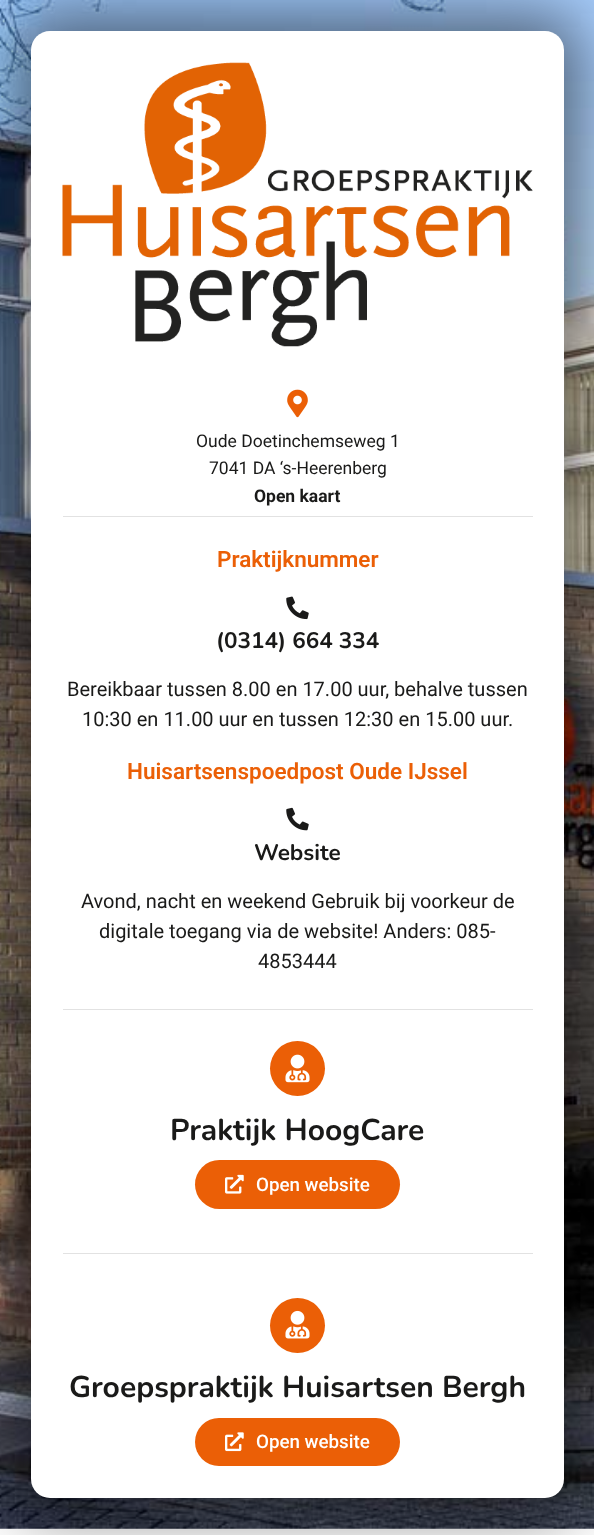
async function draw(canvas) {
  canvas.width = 594;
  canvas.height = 1535;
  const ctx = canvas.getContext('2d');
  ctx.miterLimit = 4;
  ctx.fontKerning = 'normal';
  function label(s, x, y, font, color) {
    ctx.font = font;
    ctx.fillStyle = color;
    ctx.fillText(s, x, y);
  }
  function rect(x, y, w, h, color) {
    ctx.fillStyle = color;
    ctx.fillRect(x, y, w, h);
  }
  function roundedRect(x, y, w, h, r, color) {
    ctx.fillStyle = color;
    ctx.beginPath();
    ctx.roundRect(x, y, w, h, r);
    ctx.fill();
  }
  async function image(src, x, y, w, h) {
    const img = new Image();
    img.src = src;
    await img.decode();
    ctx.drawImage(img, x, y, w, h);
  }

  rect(0, 0, 594, 1535, '#fff');
  await image('assets/img1.png', 0, 0, 594, 1529);
  ctx.fillStyle = '#00000080';
  ctx.filter = 'blur(31px)';
  ctx.beginPath();
  ctx.roundRect(13, 13, 570, 1503, 38);
  ctx.fill();
  ctx.filter = 'none';
  roundedRect(31, 31, 533, 1467, 19, '#fff');
  await image('assets/img2.png', 62, 62, 471, 285);
  await image('assets/img3.png', 287, 389, 21, 29);
  label('Oude Doetinchemseweg 1', 196, 447, '17.5px Roboto', '#1a1a19');
  label('7041 DA ‘s-Heerenberg', 209, 474, '17.5px Roboto', '#1a1a19');
  label('Open kaart', 254, 502, 'bold 17.5px Roboto', '#1a1a19');
  rect(63, 516, 470, 1, '#e2e2e2');
  rect(63, 1009, 470, 1, '#e2e2e2');
  label('Praktijknummer', 217, 567, '600 22.5px Roboto', '#eb5f06');
  await image('assets/img4.png', 286, 596, 23, 24);
  label('(0314) 664 334', 216, 648, 'bold 22.5px Nunito', '#1a1a19');
  label('Bereikbaar tussen 8.00 en 17.00 uur, behalve tussen', 67, 696, '20px Roboto', '#1a1a19');
  label('10:30 en 11.00 uur en tussen 12:30 en 15.00 uur.', 82, 726, '20px Roboto', '#1a1a19');
  label('Huisartsenspoedpost Oude IJssel', 127, 779, '600 22.5px Roboto', '#eb5f06');
  await image('assets/img5.png', 286, 807, 23, 24);
  label('Website', 254, 860, 'bold 22.5px Nunito', '#1a1a19');
  label('Avond, nacht en weekend Gebruik bij voorkeur de', 81, 908, '20px Roboto', '#1a1a19');
  label('digitale toegang via de website! Anders: 085-', 99, 938, '20px Roboto', '#1a1a19');
  label('4853444', 258, 968, '20px Roboto', '#1a1a19');
  ctx.fillStyle = '#eb5f06';
  ctx.beginPath();
  ctx.arc(297.5, 1068.5, 27.5, 0, 2 * Math.PI);
  ctx.fill();
  await image('assets/img6.png', 285, 1054, 25, 29);
  label('Praktijk HoogCare', 170, 1140, 'bold 30px Nunito', '#1a1a19');
  roundedRect(195, 1160, 205, 49, 24.5, '#eb5f06');
  await image('assets/img7.png', 225, 1174, 19, 20);
  label('Open website', 256, 1191, '500 18.75px Roboto', '#fff');
  rect(63, 1253, 470, 1, '#e2e2e2');
  ctx.fillStyle = '#eb5f06';
  ctx.beginPath();
  ctx.arc(297.5, 1325.5, 27.5, 0, 2 * Math.PI);
  ctx.fill();
  await image('assets/img8.png', 285, 1310, 25, 29);
  label('Groepspraktijk Huisartsen Bergh', 69, 1397, 'bold 30px Nunito', '#1a1a19');
  roundedRect(195, 1418, 205, 48, 24, '#eb5f06');
  await image('assets/img9.png', 225, 1432, 19, 20);
  label('Open website', 256, 1448, '500 18.75px Roboto', '#fff');
}

draw(document.querySelector('canvas'));
